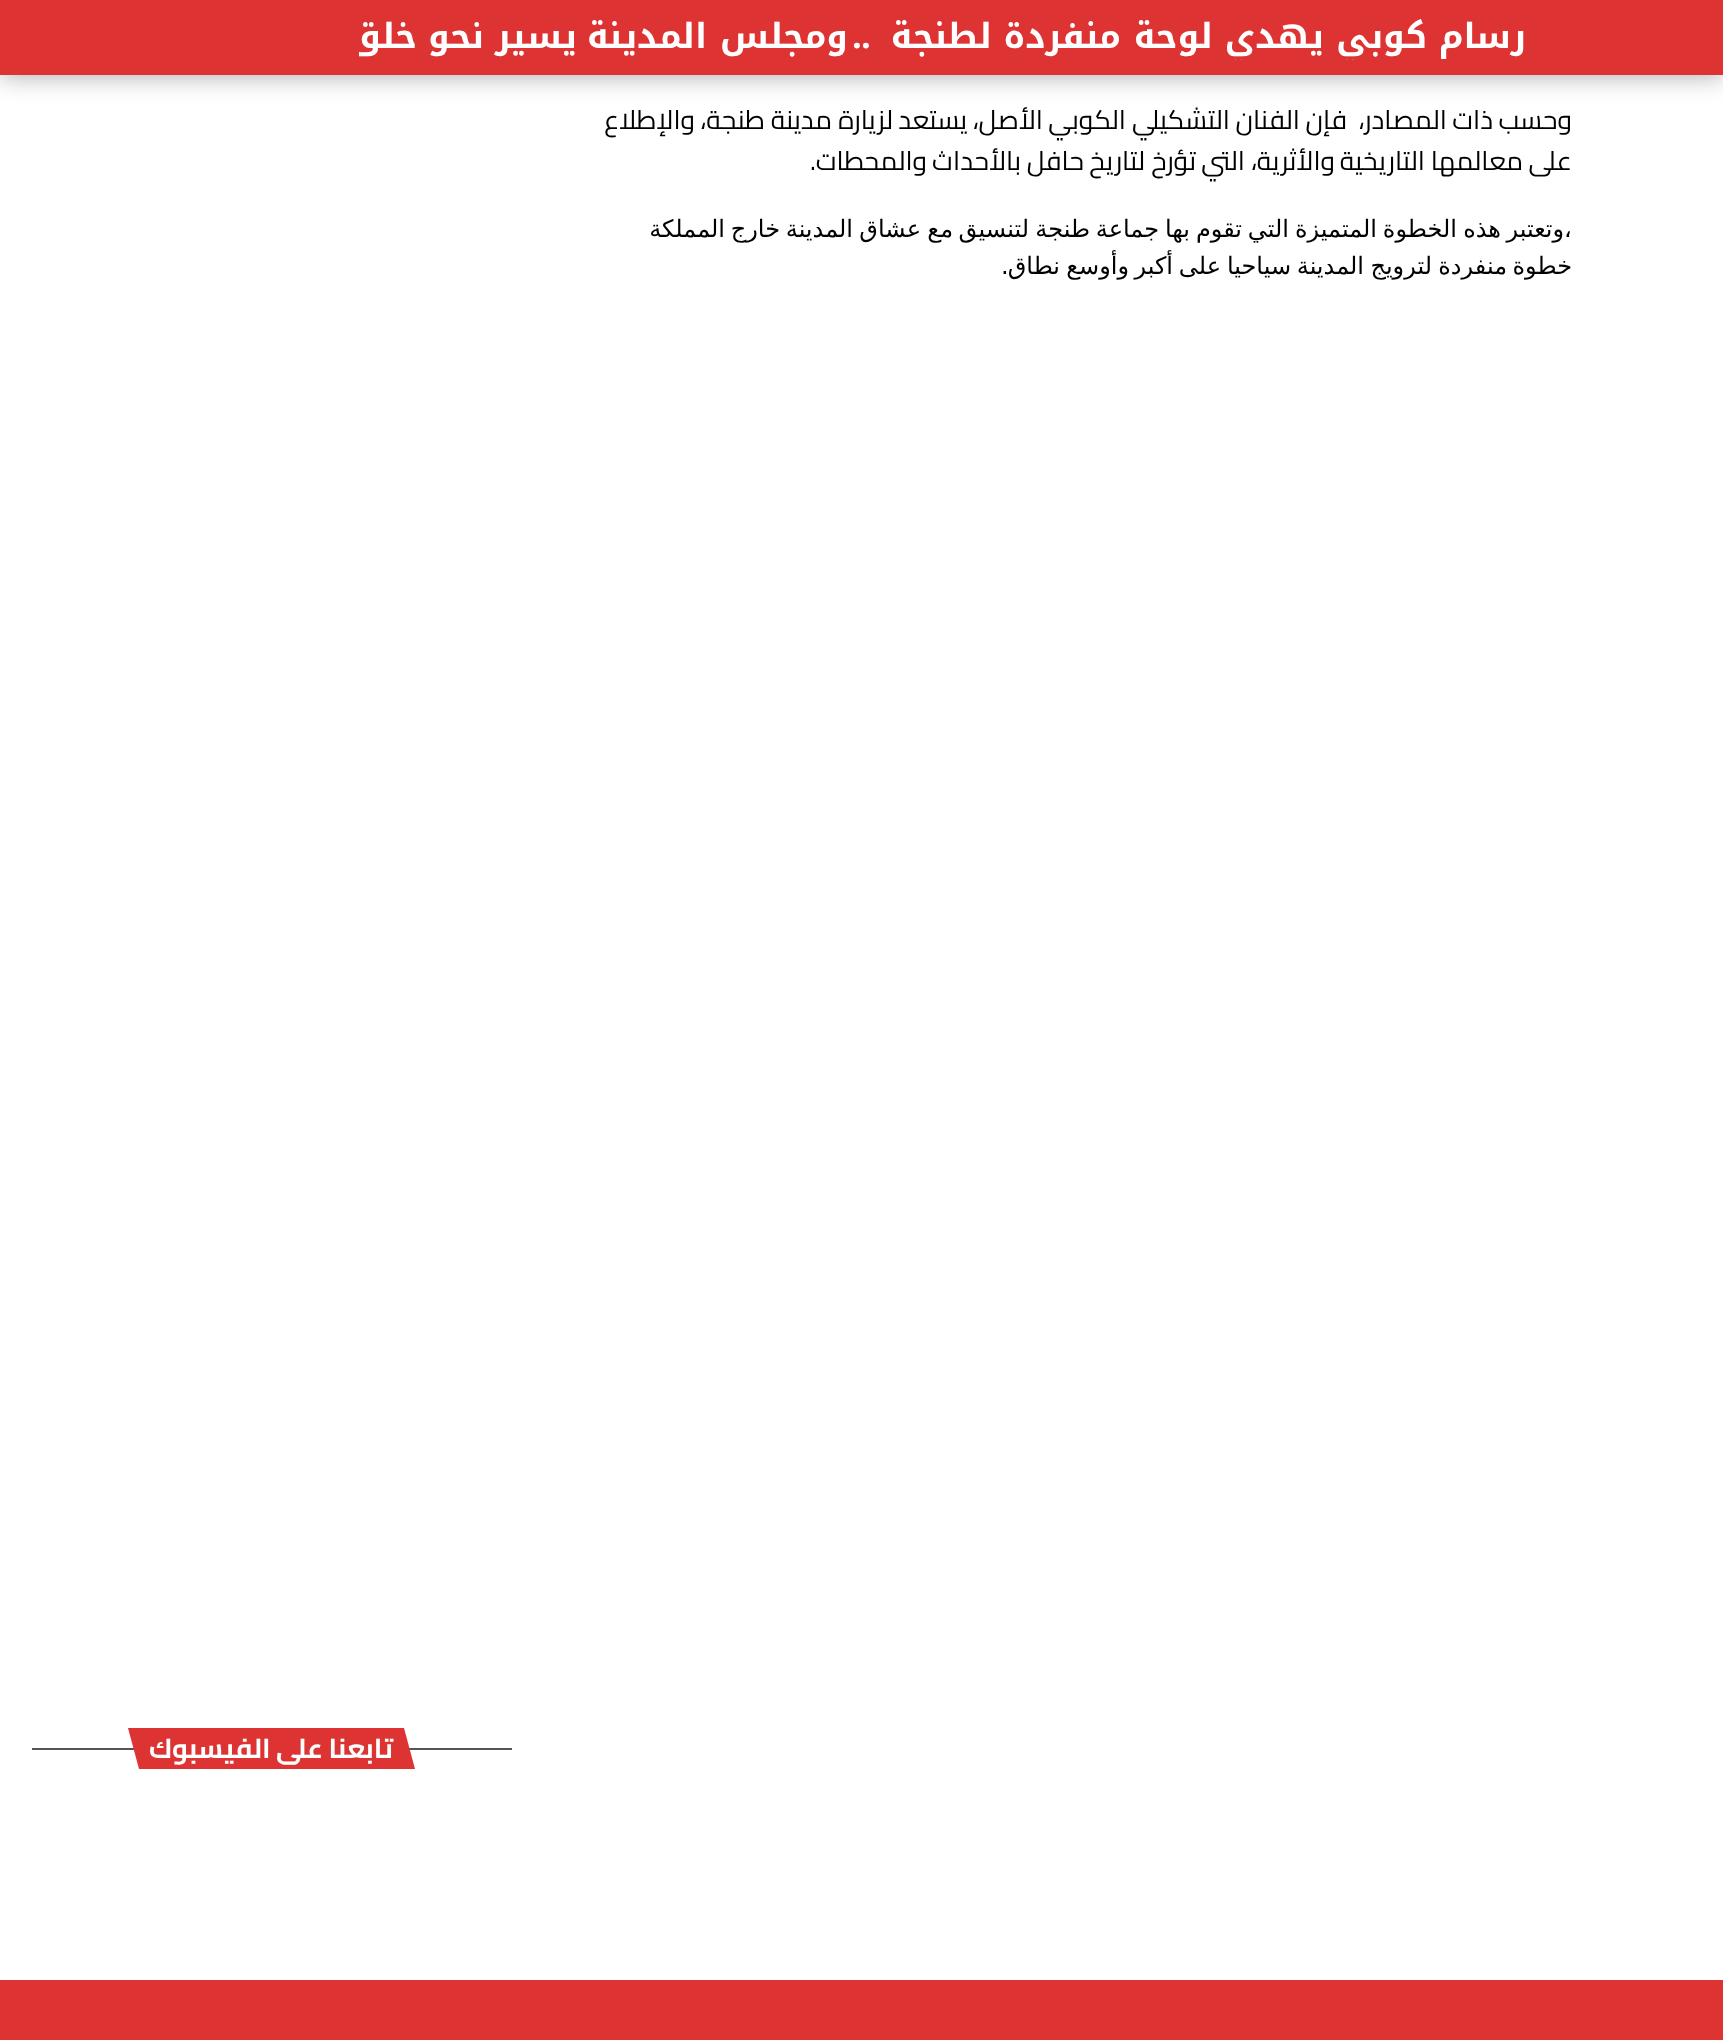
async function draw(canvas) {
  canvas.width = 1723;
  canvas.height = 2040;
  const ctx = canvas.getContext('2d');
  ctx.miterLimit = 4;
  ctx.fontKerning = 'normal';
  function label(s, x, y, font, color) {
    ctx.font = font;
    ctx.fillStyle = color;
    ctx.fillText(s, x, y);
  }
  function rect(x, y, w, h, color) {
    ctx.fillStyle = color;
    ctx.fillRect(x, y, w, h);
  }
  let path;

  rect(0, 0, 1723, 2040, '#fff');
  ctx.fillStyle = '#0000004d';
  ctx.filter = 'blur(12px)';
  ctx.beginPath();
  ctx.rect(0, 2, 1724, 75);
  ctx.fill();
  ctx.filter = 'none';
  rect(0, 0, 1723, 75, '#d33');
  ctx.letterSpacing = '-0.75px';
  ctx.direction = 'rtl';
  label('رسام', 1526, 48, 'bold 34.5px Noto Kufi Arabic', '#fff');
  ctx.save();
  ctx.beginPath();
  ctx.rect(359, 15, 1170, 45);
  ctx.clip();
  label('كوبي', 1427, 48, 'bold 34.5px Noto Kufi Arabic', '#fff');
  label('يهدي', 1324, 48, 'bold 34.5px Noto Kufi Arabic', '#fff');
  ctx.restore();
  label('لوحة', 1213, 48, 'bold 34.5px Noto Kufi Arabic', '#fff');
  label('منفردة', 1121, 48, 'bold 34.5px Noto Kufi Arabic', '#fff');
  label('لطنجة', 992, 48, 'bold 34.5px Noto Kufi Arabic', '#fff');
  ctx.direction = 'ltr';
  label('..', 852, 48, 'bold 34.5px Noto Kufi Arabic', '#fff');
  ctx.direction = 'rtl';
  label('ومجلس', 848, 48, 'bold 34.5px Noto Kufi Arabic', '#fff');
  label('المدينة', 707, 48, 'bold 34.5px Noto Kufi Arabic', '#fff');
  label('يسير', 577, 48, 'bold 34.5px Noto Kufi Arabic', '#fff');
  label('نحو', 484, 48, 'bold 34.5px Noto Kufi Arabic', '#fff');
  ctx.save();
  ctx.beginPath();
  ctx.rect(359, 15, 1170, 45);
  ctx.clip();
  label('خلق', 417, 48, 'bold 34.5px Noto Kufi Arabic', '#fff');
  ctx.restore();
  ctx.letterSpacing = '0px';
  label('وحسب', 1572, 129, '26.5px Cairo', '#000');
  label('ذات', 1493, 129, '26.5px Cairo', '#000');
  label('المصادر،', 1447, 129, '26.5px Cairo', '#000');
  label('فإن', 1347, 129, '26.5px Cairo', '#000');
  label('الفنان', 1300, 129, '26.5px Cairo', '#000');
  label('التشكيلي', 1230, 129, '26.5px Cairo', '#000');
  label('الكوبي', 1126, 129, '26.5px Cairo', '#000');
  label('الأصل،', 1043, 129, '26.5px Cairo', '#000');
  label('يستعد', 967, 129, '26.5px Cairo', '#000');
  label('لزيارة', 893, 129, '26.5px Cairo', '#000');
  label('مدينة', 832, 129, '26.5px Cairo', '#000');
  label('طنجة،', 765, 129, '26.5px Cairo', '#000');
  label('والإطلاع', 695, 129, '26.5px Cairo', '#000');
  label('على', 1572, 170, '26.5px Cairo', '#000');
  label('معالمها', 1523, 170, '26.5px Cairo', '#000');
  label('التاريخية', 1425, 170, '26.5px Cairo', '#000');
  label('والأثرية،', 1335, 170, '26.5px Cairo', '#000');
  label('التي', 1245, 170, '26.5px Cairo', '#000');
  label('تؤرخ', 1196, 170, '26.5px Cairo', '#000');
  label('لتاريخ', 1145, 170, '26.5px Cairo', '#000');
  label('حافل', 1084, 170, '26.5px Cairo', '#000');
  label('بالأحداث', 1021, 170, '26.5px Cairo', '#000');
  label('والمحطات', 927, 170, '26.5px Cairo', '#000');
  ctx.direction = 'ltr';
  label('.', 810, 170, '26.5px Cairo', '#000');
  label('،', 1564, 237, '24px DejaVu Sans', '#000');
  ctx.direction = 'rtl';
  label('وتعتبر', 1564, 237, '24px DejaVu Sans', '#000');
  label('هذه', 1501, 237, '24px DejaVu Sans', '#000');
  label('الخطوة', 1457, 237, '24px DejaVu Sans', '#000');
  label('المتميزة', 1377, 237, '24px DejaVu Sans', '#000');
  label('التي', 1289, 237, '24px DejaVu Sans', '#000');
  label('تقوم', 1242, 237, '24px DejaVu Sans', '#000');
  label('بها', 1190, 237, '24px DejaVu Sans', '#000');
  label('جماعة', 1159, 237, '24px DejaVu Sans', '#000');
  label('طنجة', 1090, 237, '24px DejaVu Sans', '#000');
  label('لتنسيق', 1029, 237, '24px DejaVu Sans', '#000');
  label('مع', 953, 237, '24px DejaVu Sans', '#000');
  label('عشاق', 921, 237, '24px DejaVu Sans', '#000');
  label('المدينة', 853, 237, '24px DejaVu Sans', '#000');
  label('خارج', 780, 237, '24px DejaVu Sans', '#000');
  label('المملكة', 725, 237, '24px DejaVu Sans', '#000');
  label('خطوة', 1572, 274, '24px DejaVu Sans', '#000');
  label('منفردة', 1507, 274, '24px DejaVu Sans', '#000');
  label('لترويج', 1432, 274, '24px DejaVu Sans', '#000');
  label('المدينة', 1364, 274, '24px DejaVu Sans', '#000');
  label('سياحيا', 1291, 274, '24px DejaVu Sans', '#000');
  label('على', 1221, 274, '24px DejaVu Sans', '#000');
  label('أكبر', 1173, 274, '24px DejaVu Sans', '#000');
  label('وأوسع', 1129, 274, '24px DejaVu Sans', '#000');
  label('نطاق', 1060, 274, '24px DejaVu Sans', '#000');
  ctx.direction = 'ltr';
  label('.', 1001, 274, '24px DejaVu Sans', '#000');
  rect(32, 1748, 480, 2, '#555');
  ctx.fillStyle = '#d33';
  path = new Path2D('M128 1728H404L415 1769H139Z');
  ctx.fill(path);
  ctx.letterSpacing = '-0.4px';
  ctx.direction = 'rtl';
  label('تابعنا على الفيسبوك', 393, 1758, 'bold 27.25px Cairo', '#fff');
  rect(0, 1980, 1723, 60, '#d33');
}

draw(document.querySelector('canvas'));
